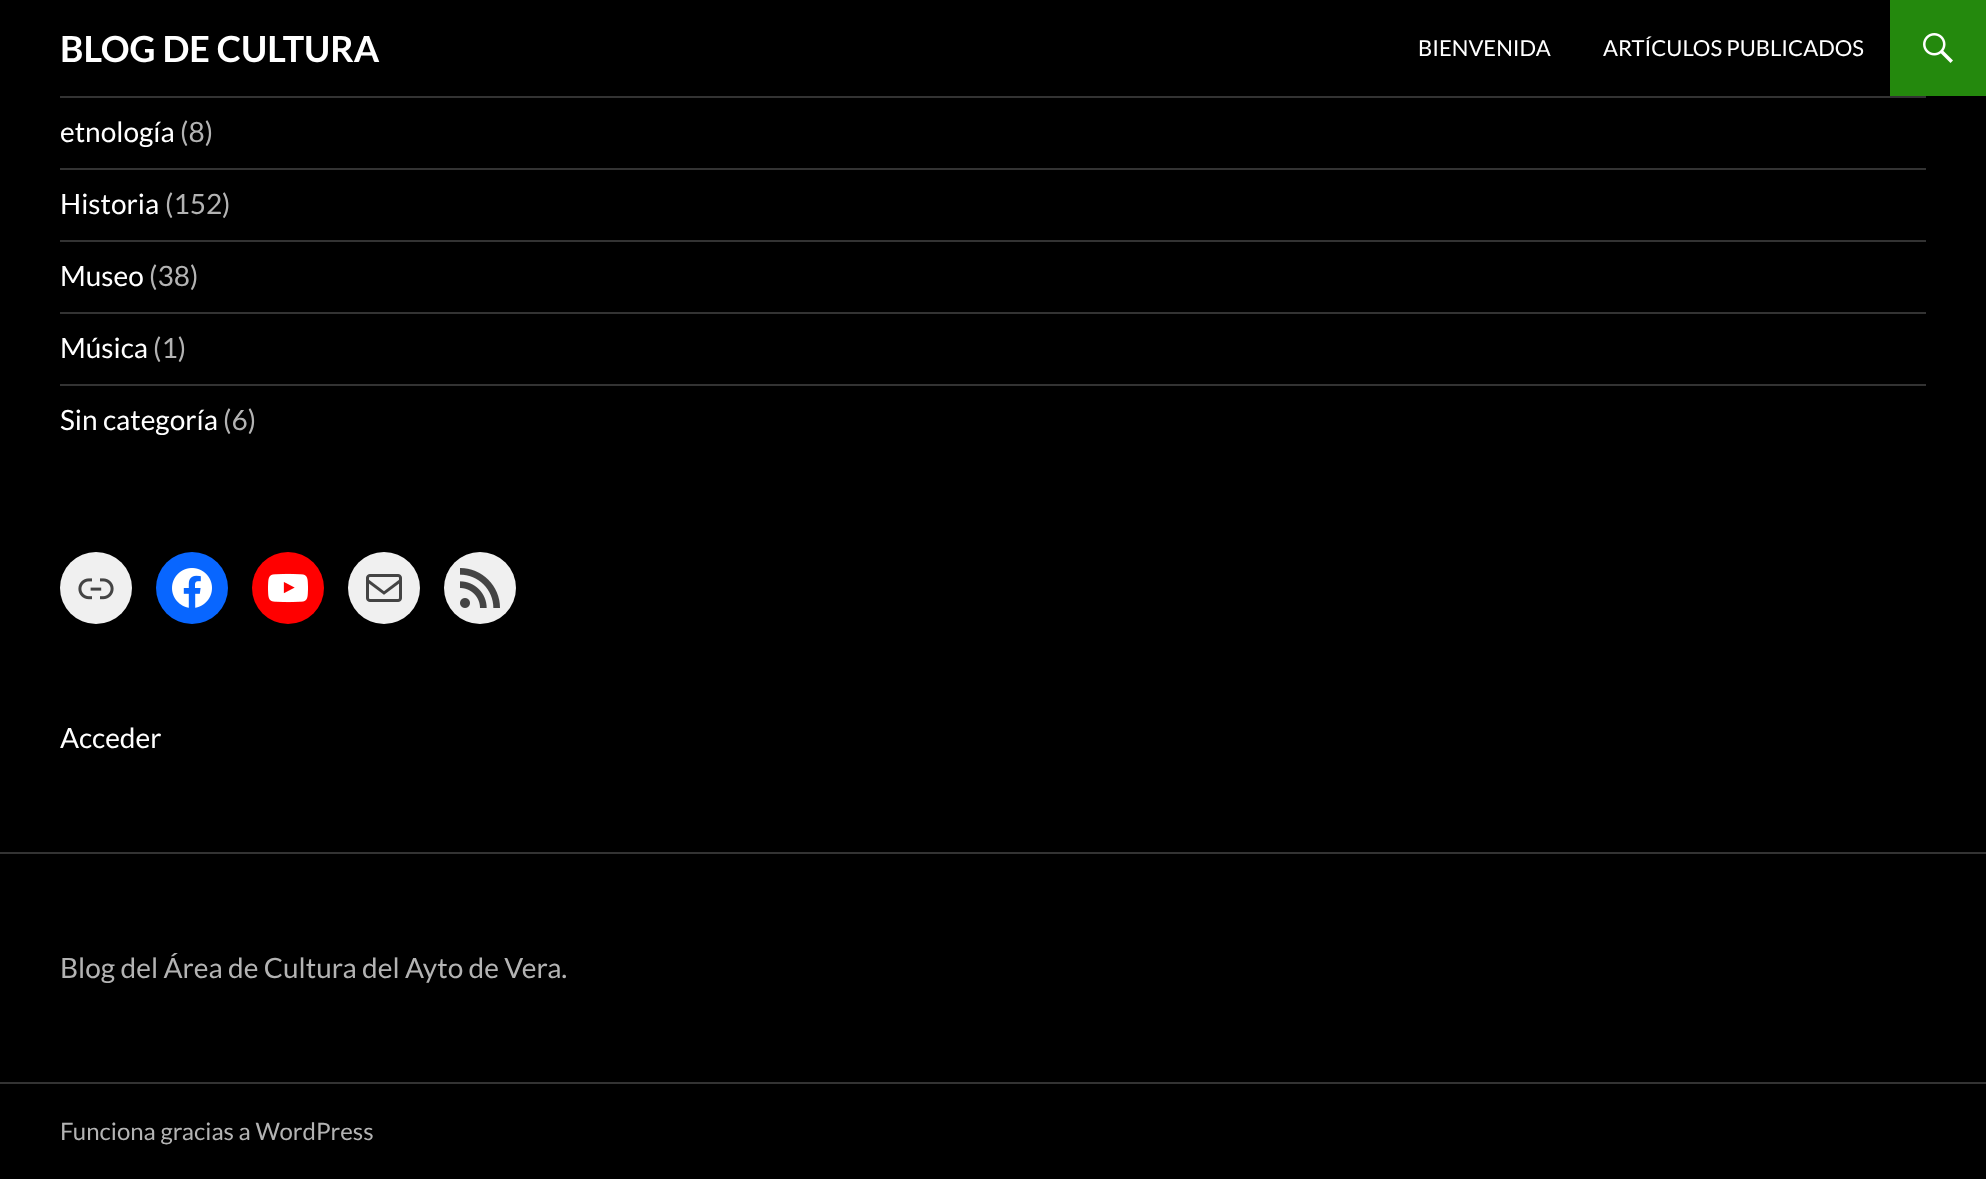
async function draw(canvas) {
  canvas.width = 1986;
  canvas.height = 1179;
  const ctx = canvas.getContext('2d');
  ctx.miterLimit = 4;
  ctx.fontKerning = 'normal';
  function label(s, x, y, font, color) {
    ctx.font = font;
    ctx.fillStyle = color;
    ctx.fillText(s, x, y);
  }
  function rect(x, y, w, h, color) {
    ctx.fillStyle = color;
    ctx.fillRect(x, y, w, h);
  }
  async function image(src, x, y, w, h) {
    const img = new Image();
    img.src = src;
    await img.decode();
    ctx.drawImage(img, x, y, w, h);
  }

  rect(0, 0, 1986, 1179, '#000');
  label('BLOG DE CULTURA', 60, 62, 'bold 36px Lato', '#fff');
  label('BIENVENIDA', 1418, 56, '22px Lato', '#fff');
  label('ARTÍCULOS PUBLICADOS', 1603, 56, '22px Lato', '#fff');
  rect(1890, 0, 96, 96, '#24890d');
  await image('assets/img1.png', 1923, 33, 30, 30);
  rect(0, 852, 1986, 2, '#333');
  rect(60, 96, 1866, 2, '#333');
  label('etnología', 60, 142, '28px Lato', '#fff');
  label('(8)', 180, 142, '28px Lato', '#b3b3b3');
  rect(60, 168, 1866, 2, '#333');
  label('Historia', 60, 214, '28px Lato', '#fff');
  label('(152)', 165, 214, '28px Lato', '#b3b3b3');
  rect(60, 240, 1866, 2, '#333');
  label('Museo', 60, 286, '28px Lato', '#fff');
  label('(38)', 149, 286, '28px Lato', '#b3b3b3');
  rect(60, 312, 1866, 2, '#333');
  label('Música', 60, 358, '28px Lato', '#fff');
  label('(1)', 153, 358, '28px Lato', '#b3b3b3');
  rect(60, 384, 1866, 2, '#333');
  label('Sin categoría', 60, 430, '28px Lato', '#fff');
  label('(6)', 223, 430, '28px Lato', '#b3b3b3');
  ctx.fillStyle = '#f0f0f0';
  ctx.beginPath();
  ctx.arc(96, 588, 36, 0, 2 * Math.PI);
  ctx.fill();
  await image('assets/img2.png', 78, 578, 36, 22);
  ctx.fillStyle = '#0866ff';
  ctx.beginPath();
  ctx.arc(192, 588, 36, 0, 2 * Math.PI);
  ctx.fill();
  await image('assets/img3.png', 172, 568, 40, 40);
  ctx.fillStyle = '#f00';
  ctx.beginPath();
  ctx.arc(288, 588, 36, 0, 2 * Math.PI);
  ctx.fill();
  await image('assets/img4.png', 268, 573, 40, 30);
  ctx.fillStyle = '#f0f0f0';
  ctx.beginPath();
  ctx.arc(384, 588, 36, 0, 2 * Math.PI);
  ctx.fill();
  await image('assets/img5.png', 366, 574, 36, 28);
  ctx.beginPath();
  ctx.arc(480, 588, 36, 0, 2 * Math.PI);
  ctx.fill();
  await image('assets/img6.png', 460, 568, 40, 40);
  label('Acceder', 60, 748, '28px Lato', '#fff');
  label('Blog del Área de Cultura del Ayto de Vera.', 60, 978, '28px Lato', '#b3b3b3');
  rect(0, 1082, 1986, 2, '#333');
  label('Funciona gracias a WordPress', 60, 1140, '24px Lato', '#b3b3b3');
}

draw(document.querySelector('canvas'));
